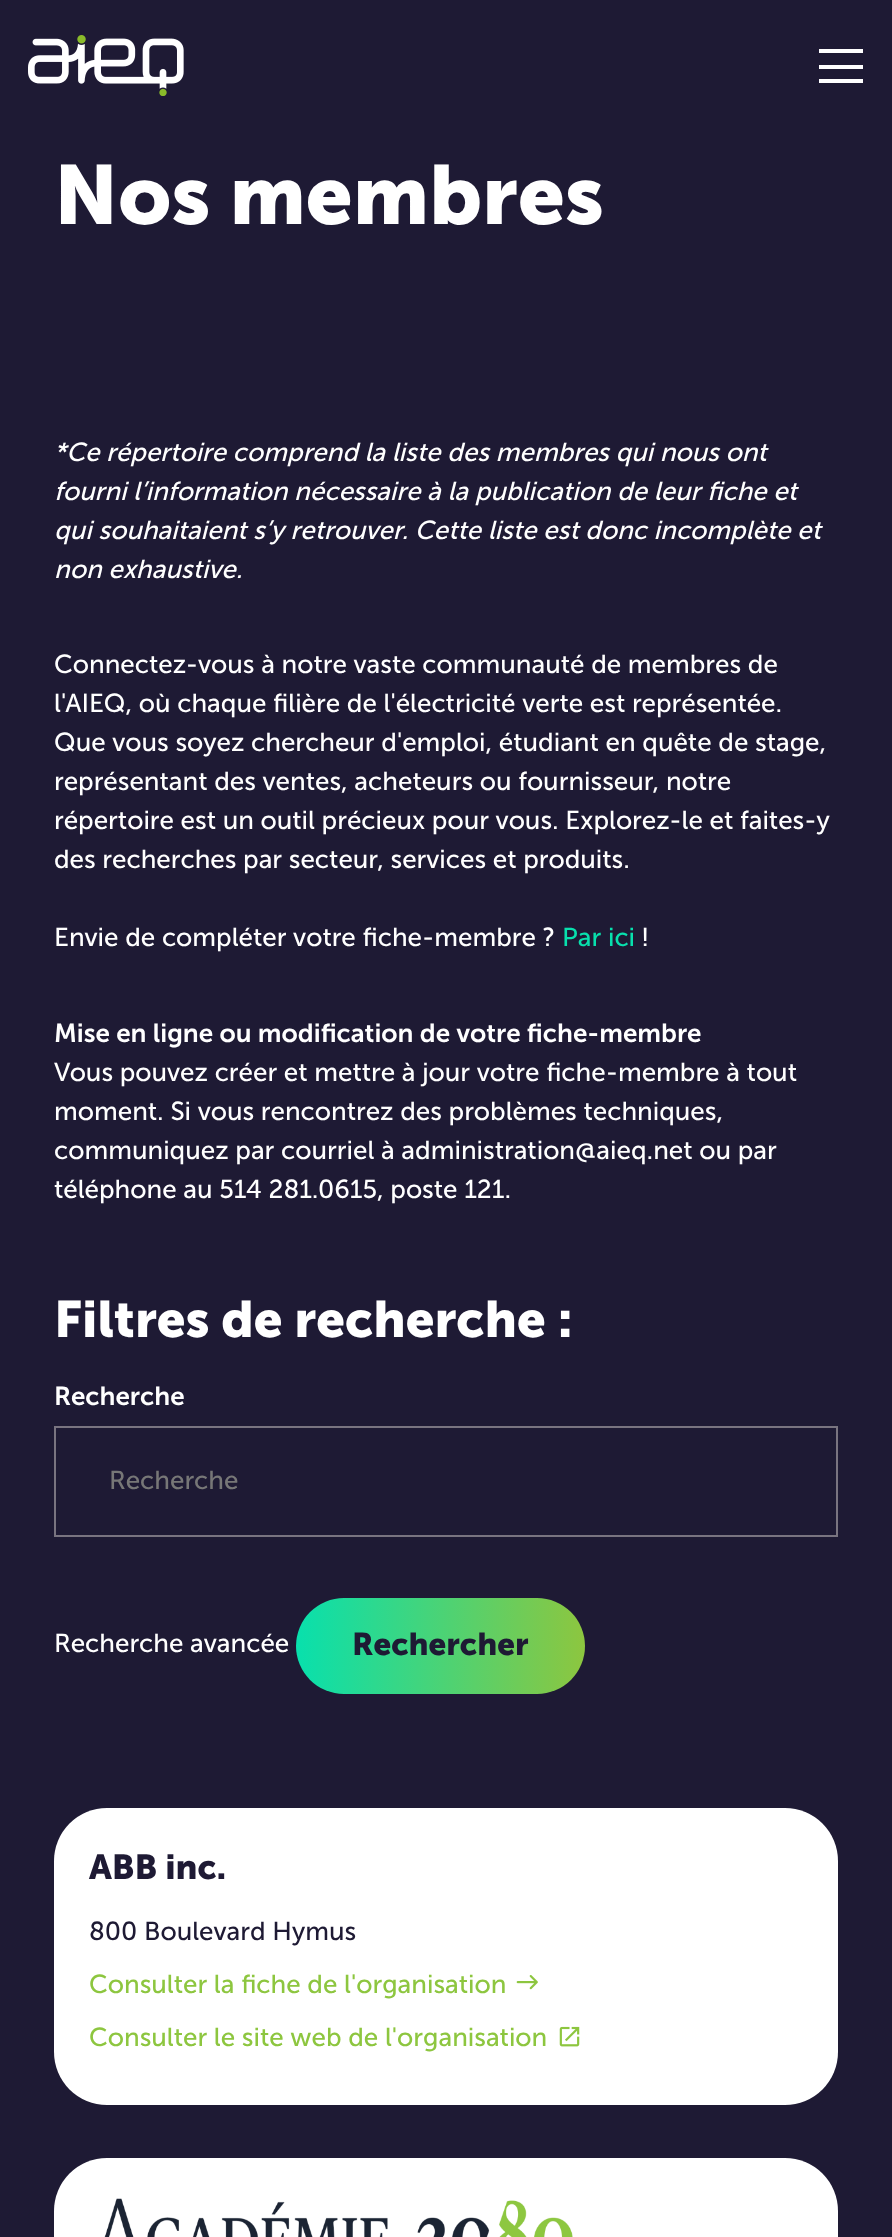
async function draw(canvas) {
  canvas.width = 892;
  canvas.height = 2237;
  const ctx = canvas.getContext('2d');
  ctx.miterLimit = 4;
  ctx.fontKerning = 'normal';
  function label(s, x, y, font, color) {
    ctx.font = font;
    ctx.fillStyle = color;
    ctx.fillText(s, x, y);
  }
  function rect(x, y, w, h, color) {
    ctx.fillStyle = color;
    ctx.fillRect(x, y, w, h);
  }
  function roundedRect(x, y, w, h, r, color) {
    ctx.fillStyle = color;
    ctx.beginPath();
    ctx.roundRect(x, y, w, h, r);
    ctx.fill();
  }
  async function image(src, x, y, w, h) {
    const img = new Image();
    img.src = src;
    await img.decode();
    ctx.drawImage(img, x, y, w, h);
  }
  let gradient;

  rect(0, 0, 892, 2237, '#1e1a34');
  await image('assets/img1.png', 28, 35, 156, 61);
  rect(819, 49, 44, 4, '#fff');
  rect(819, 65, 44, 4, '#fff');
  rect(819, 79, 44, 4, '#fff');
  label('Nos membres', 54, 224, 'bold 83.25px Museo Sans', '#fff');
  label('*Ce répertoire comprend la liste des membres qui nous ont', 54, 461, 'italic 26px Museo Sans', '#fff');
  label('fourni l’information nécessaire à la publication de leur fiche et', 54, 500, 'italic 26px Museo Sans', '#fff');
  label('qui souhaitaient s’y retrouver. Cette liste est donc incomplète et', 54, 539, 'italic 26px Museo Sans', '#fff');
  label('non exhaustive.', 54, 578, 'italic 26px Museo Sans', '#fff');
  label('Connectez-vous à notre vaste communauté de membres de', 54, 673, '26px Museo Sans', '#fff');
  label('l\'AIEQ, où chaque filière de l\'électricité verte est représentée.', 54, 712, '26px Museo Sans', '#fff');
  label('Que vous soyez chercheur d\'emploi, étudiant en quête de stage,', 54, 751, '26px Museo Sans', '#fff');
  label('représentant des ventes, acheteurs ou fournisseur, notre', 54, 790, '26px Museo Sans', '#fff');
  label('répertoire est un outil précieux pour vous. Explorez-le et faites-y', 54, 829, '26px Museo Sans', '#fff');
  label('des recherches par secteur, services et produits.', 54, 868, '26px Museo Sans', '#fff');
  label('Envie de compléter votre fiche-membre ?', 54, 946, '26px Museo Sans', '#fff');
  label('Par ici', 562, 946, '26px Museo Sans', '#08e0ad');
  label('!', 641, 946, '26px Museo Sans', '#fff');
  label('Mise en ligne ou modification de votre fiche-membre', 54, 1042, '600 26px Museo Sans', '#fff');
  label('Vous pouvez créer et mettre à jour votre fiche-membre à tout', 54, 1081, '26px Museo Sans', '#fff');
  label('moment. Si vous rencontrez des problèmes techniques,', 54, 1120, '26px Museo Sans', '#fff');
  label('communiquez par courriel à administration@aieq.net ou par', 54, 1159, '26px Museo Sans', '#fff');
  label('téléphone au 514 281.0615', 54, 1198, '26px Museo Sans', '#fff');
  label(', poste 121.', 377, 1198, '26px Museo Sans', '#fff');
  label('Filtres de recherche :', 54, 1337, 'bold 51.1px Museo Sans', '#fff');
  label('Recherche', 54, 1405, '600 26px Museo Sans', '#fff');
  ctx.strokeStyle = '#797480';
  ctx.lineWidth = 2;
  ctx.strokeRect(55, 1427, 782, 109);
  label('Recherche', 109, 1489, '26px Museo Sans', '#777');
  label('Recherche avancée', 54, 1652, '26px Museo Sans', '#fff');
  gradient = ctx.createLinearGradient(296, 1646, 585, 1646);
  gradient.addColorStop(0, '#08e0ad');
  gradient.addColorStop(1, '#8dc63f');
  ctx.fillStyle = gradient;
  ctx.beginPath();
  ctx.roundRect(296, 1598, 289, 96, 48);
  ctx.fill();
  label('Rechercher', 352, 1655, 'bold 31.5px Museo Sans', '#1e1a34');
  roundedRect(54, 1808, 784, 297, 53, '#fff');
  label('ABB inc.', 89, 1879, 'bold 34.5px Museo Sans', '#1e1a34');
  label('800 Boulevard Hymus', 89, 1940, '26px Museo Sans', '#1e1a34');
  label('Consulter la fiche de l\'organisation', 89, 1993, '26px Museo Sans', '#8dc63f');
  await image('assets/img2.png', 516, 1975, 22, 15);
  label('Consulter le site web de l\'organisation', 89, 2046, '26px Museo Sans', '#8dc63f');
  await image('assets/img3.png', 559, 2026, 21, 21);
  roundedRect(54, 2158, 784, 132, 53, '#fff');
  await image('assets/img4.png', 104, 2198, 469, 39);
}

draw(document.querySelector('canvas'));
